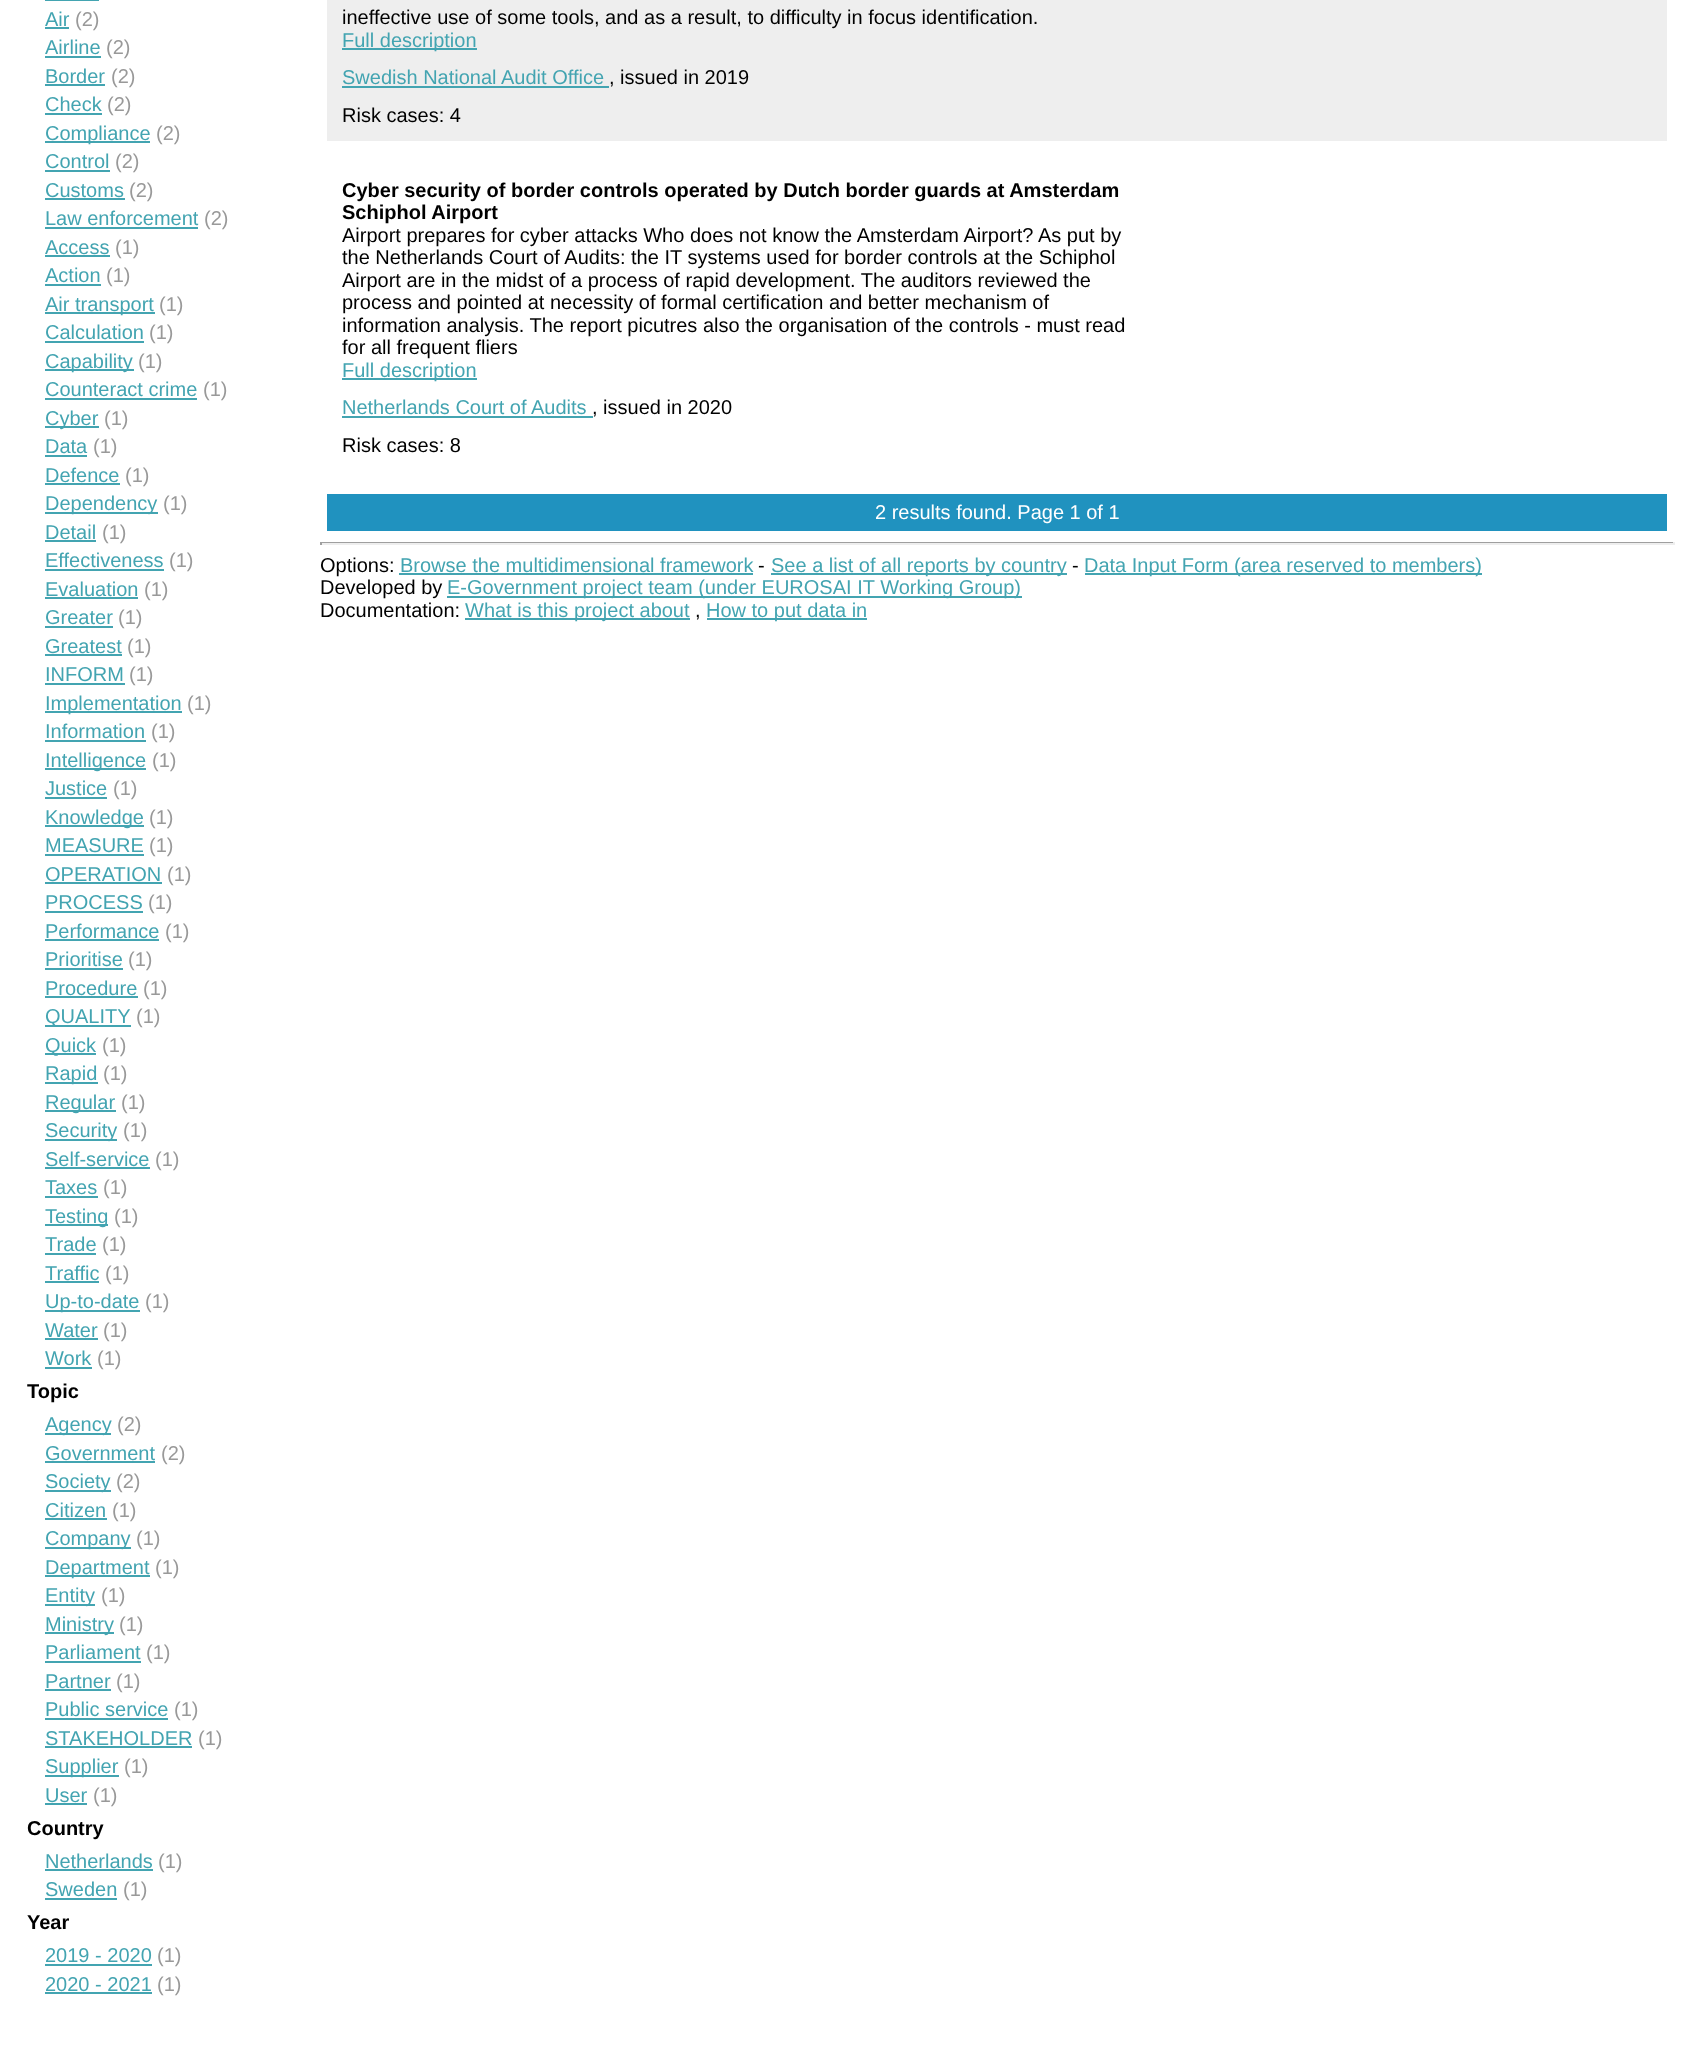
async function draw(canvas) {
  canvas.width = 1685;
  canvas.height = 2050;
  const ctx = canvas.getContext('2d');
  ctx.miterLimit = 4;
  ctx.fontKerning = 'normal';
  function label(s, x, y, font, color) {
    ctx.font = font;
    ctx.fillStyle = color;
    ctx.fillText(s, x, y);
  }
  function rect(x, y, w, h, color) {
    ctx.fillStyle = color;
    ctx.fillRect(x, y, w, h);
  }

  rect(0, 0, 1685, 2050, '#fff');
  rect(45, 0, 54, 1, '#43a4b1');
  label('Air', 45, 26, '20px Liberation Sans', '#43a4b1');
  rect(45, 27, 24, 2, '#43a4b1');
  label('(2)', 75, 26, '20px Liberation Sans', '#999');
  label('Airline', 45, 54, '20px Liberation Sans', '#43a4b1');
  rect(45, 56, 56, 2, '#43a4b1');
  label('(2)', 106, 54, '20px Liberation Sans', '#999');
  label('Border', 45, 83, '20px Liberation Sans', '#43a4b1');
  rect(45, 84, 60, 2, '#43a4b1');
  label('(2)', 111, 83, '20px Liberation Sans', '#999');
  label('Check', 45, 111, '20px Liberation Sans', '#43a4b1');
  rect(45, 113, 57, 2, '#43a4b1');
  label('(2)', 107, 111, '20px Liberation Sans', '#999');
  rect(45, 141, 105, 2, '#43a4b1');
  label('Compliance', 45, 140, '20px Liberation Sans', '#43a4b1');
  label('(2)', 156, 140, '20px Liberation Sans', '#999');
  label('Control', 45, 168, '20px Liberation Sans', '#43a4b1');
  rect(45, 170, 65, 2, '#43a4b1');
  label('(2)', 115, 168, '20px Liberation Sans', '#999');
  label('Customs', 45, 197, '20px Liberation Sans', '#43a4b1');
  rect(45, 198, 80, 2, '#43a4b1');
  label('(2)', 129, 197, '20px Liberation Sans', '#999');
  label('Law enforcement', 45, 225, '20px Liberation Sans', '#43a4b1');
  rect(45, 227, 153, 2, '#43a4b1');
  label('(2)', 204, 225, '20px Liberation Sans', '#999');
  label('Access', 45, 254, '20px Liberation Sans', '#43a4b1');
  rect(45, 255, 65, 2, '#43a4b1');
  label('(1)', 115, 254, '20px Liberation Sans', '#999');
  label('Action', 45, 282, '20px Liberation Sans', '#43a4b1');
  rect(45, 284, 56, 2, '#43a4b1');
  label('(1)', 106, 282, '20px Liberation Sans', '#999');
  rect(45, 312, 110, 2, '#43a4b1');
  label('Air transport', 45, 311, '20px Liberation Sans', '#43a4b1');
  label('(1)', 159, 311, '20px Liberation Sans', '#999');
  label('Calculation', 45, 339, '20px Liberation Sans', '#43a4b1');
  rect(45, 341, 99, 2, '#43a4b1');
  label('(1)', 149, 339, '20px Liberation Sans', '#999');
  rect(45, 369, 89, 2, '#43a4b1');
  label('Capability', 45, 368, '20px Liberation Sans', '#43a4b1');
  label('(1)', 138, 368, '20px Liberation Sans', '#999');
  label('Counteract crime', 45, 396, '20px Liberation Sans', '#43a4b1');
  rect(45, 398, 152, 2, '#43a4b1');
  label('(1)', 203, 396, '20px Liberation Sans', '#999');
  rect(45, 426, 54, 2, '#43a4b1');
  label('Cyber', 45, 425, '20px Liberation Sans', '#43a4b1');
  label('(1)', 104, 425, '20px Liberation Sans', '#999');
  label('Data', 45, 453, '20px Liberation Sans', '#43a4b1');
  rect(45, 455, 42, 2, '#43a4b1');
  label('(1)', 93, 453, '20px Liberation Sans', '#999');
  label('Defence', 45, 482, '20px Liberation Sans', '#43a4b1');
  rect(45, 483, 75, 2, '#43a4b1');
  label('(1)', 125, 482, '20px Liberation Sans', '#999');
  rect(45, 512, 113, 2, '#43a4b1');
  label('Dependency', 45, 510, '20px Liberation Sans', '#43a4b1');
  label('(1)', 163, 510, '20px Liberation Sans', '#999');
  label('Detail', 45, 539, '20px Liberation Sans', '#43a4b1');
  rect(45, 540, 51, 2, '#43a4b1');
  label('(1)', 102, 539, '20px Liberation Sans', '#999');
  label('Effectiveness', 45, 567, '20px Liberation Sans', '#43a4b1');
  rect(45, 569, 119, 2, '#43a4b1');
  label('(1)', 169, 567, '20px Liberation Sans', '#999');
  label('Evaluation', 45, 596, '20px Liberation Sans', '#43a4b1');
  rect(45, 597, 93, 2, '#43a4b1');
  label('(1)', 144, 596, '20px Liberation Sans', '#999');
  label('Greater', 45, 624, '20px Liberation Sans', '#43a4b1');
  rect(45, 626, 68, 2, '#43a4b1');
  label('(1)', 118, 624, '20px Liberation Sans', '#999');
  label('Greatest', 45, 653, '20px Liberation Sans', '#43a4b1');
  rect(45, 654, 77, 2, '#43a4b1');
  label('(1)', 127, 653, '20px Liberation Sans', '#999');
  label('INFORM', 45, 681, '20px Liberation Sans', '#43a4b1');
  rect(45, 683, 80, 2, '#43a4b1');
  label('(1)', 129, 681, '20px Liberation Sans', '#999');
  rect(45, 711, 137, 2, '#43a4b1');
  label('Implementation', 45, 710, '20px Liberation Sans', '#43a4b1');
  label('(1)', 187, 710, '20px Liberation Sans', '#999');
  label('Information', 45, 738, '20px Liberation Sans', '#43a4b1');
  rect(45, 740, 101, 2, '#43a4b1');
  label('(1)', 151, 738, '20px Liberation Sans', '#999');
  rect(45, 768, 101, 2, '#43a4b1');
  label('Intelligence', 45, 767, '20px Liberation Sans', '#43a4b1');
  label('(1)', 152, 767, '20px Liberation Sans', '#999');
  label('Justice', 45, 795, '20px Liberation Sans', '#43a4b1');
  rect(45, 797, 62, 2, '#43a4b1');
  label('(1)', 113, 795, '20px Liberation Sans', '#999');
  rect(45, 825, 99, 2, '#43a4b1');
  label('Knowledge', 45, 824, '20px Liberation Sans', '#43a4b1');
  label('(1)', 149, 824, '20px Liberation Sans', '#999');
  label('MEASURE', 45, 852, '20px Liberation Sans', '#43a4b1');
  rect(45, 854, 99, 2, '#43a4b1');
  label('(1)', 149, 852, '20px Liberation Sans', '#999');
  label('OPERATION', 45, 881, '20px Liberation Sans', '#43a4b1');
  rect(45, 882, 117, 2, '#43a4b1');
  label('(1)', 167, 881, '20px Liberation Sans', '#999');
  label('PROCESS', 45, 909, '20px Liberation Sans', '#43a4b1');
  rect(45, 911, 98, 2, '#43a4b1');
  label('(1)', 148, 909, '20px Liberation Sans', '#999');
  label('Performance', 45, 938, '20px Liberation Sans', '#43a4b1');
  rect(45, 939, 114, 2, '#43a4b1');
  label('(1)', 165, 938, '20px Liberation Sans', '#999');
  label('Prioritise', 45, 966, '20px Liberation Sans', '#43a4b1');
  rect(45, 968, 78, 2, '#43a4b1');
  label('(1)', 128, 966, '20px Liberation Sans', '#999');
  label('Procedure', 45, 995, '20px Liberation Sans', '#43a4b1');
  rect(45, 996, 93, 2, '#43a4b1');
  label('(1)', 143, 995, '20px Liberation Sans', '#999');
  rect(45, 1025, 86, 2, '#43a4b1');
  label('QUALITY', 45, 1023, '20px Liberation Sans', '#43a4b1');
  label('(1)', 136, 1023, '20px Liberation Sans', '#999');
  rect(45, 1053, 51, 2, '#43a4b1');
  label('Quick', 45, 1052, '20px Liberation Sans', '#43a4b1');
  label('(1)', 102, 1052, '20px Liberation Sans', '#999');
  rect(45, 1082, 53, 2, '#43a4b1');
  label('Rapid', 45, 1080, '20px Liberation Sans', '#43a4b1');
  label('(1)', 103, 1080, '20px Liberation Sans', '#999');
  rect(45, 1110, 71, 2, '#43a4b1');
  label('Regular', 45, 1109, '20px Liberation Sans', '#43a4b1');
  label('(1)', 121, 1109, '20px Liberation Sans', '#999');
  rect(45, 1139, 72, 2, '#43a4b1');
  label('Security', 45, 1137, '20px Liberation Sans', '#43a4b1');
  label('(1)', 123, 1137, '20px Liberation Sans', '#999');
  label('Self-service', 45, 1166, '20px Liberation Sans', '#43a4b1');
  rect(45, 1167, 105, 2, '#43a4b1');
  label('(1)', 155, 1166, '20px Liberation Sans', '#999');
  label('Taxes', 45, 1194, '20px Liberation Sans', '#43a4b1');
  rect(45, 1196, 53, 2, '#43a4b1');
  label('(1)', 103, 1194, '20px Liberation Sans', '#999');
  rect(45, 1224, 63, 2, '#43a4b1');
  label('Testing', 45, 1223, '20px Liberation Sans', '#43a4b1');
  label('(1)', 114, 1223, '20px Liberation Sans', '#999');
  label('Trade', 45, 1251, '20px Liberation Sans', '#43a4b1');
  rect(45, 1253, 51, 2, '#43a4b1');
  label('(1)', 102, 1251, '20px Liberation Sans', '#999');
  label('Traffic', 45, 1280, '20px Liberation Sans', '#43a4b1');
  rect(45, 1281, 54, 2, '#43a4b1');
  label('(1)', 105, 1280, '20px Liberation Sans', '#999');
  rect(45, 1310, 95, 2, '#43a4b1');
  label('Up-to-date', 45, 1308, '20px Liberation Sans', '#43a4b1');
  label('(1)', 145, 1308, '20px Liberation Sans', '#999');
  label('Water', 45, 1337, '20px Liberation Sans', '#43a4b1');
  rect(45, 1338, 53, 2, '#43a4b1');
  label('(1)', 103, 1337, '20px Liberation Sans', '#999');
  label('Work', 45, 1365, '20px Liberation Sans', '#43a4b1');
  rect(45, 1367, 47, 2, '#43a4b1');
  label('(1)', 97, 1365, '20px Liberation Sans', '#999');
  label('Topic', 27, 1398, 'bold 20px Liberation Sans', '#000');
  rect(45, 1433, 66, 2, '#43a4b1');
  label('Agency', 45, 1431, '20px Liberation Sans', '#43a4b1');
  label('(2)', 117, 1431, '20px Liberation Sans', '#999');
  label('Government', 45, 1460, '20px Liberation Sans', '#43a4b1');
  rect(45, 1461, 110, 2, '#43a4b1');
  label('(2)', 161, 1460, '20px Liberation Sans', '#999');
  rect(45, 1490, 66, 2, '#43a4b1');
  label('Society', 45, 1488, '20px Liberation Sans', '#43a4b1');
  label('(2)', 116, 1488, '20px Liberation Sans', '#999');
  label('Citizen', 45, 1517, '20px Liberation Sans', '#43a4b1');
  rect(45, 1518, 62, 2, '#43a4b1');
  label('(1)', 112, 1517, '20px Liberation Sans', '#999');
  rect(45, 1547, 86, 2, '#43a4b1');
  label('Company', 45, 1545, '20px Liberation Sans', '#43a4b1');
  label('(1)', 136, 1545, '20px Liberation Sans', '#999');
  rect(45, 1575, 105, 2, '#43a4b1');
  label('Department', 45, 1574, '20px Liberation Sans', '#43a4b1');
  label('(1)', 155, 1574, '20px Liberation Sans', '#999');
  rect(45, 1604, 50, 2, '#43a4b1');
  label('Entity', 45, 1602, '20px Liberation Sans', '#43a4b1');
  label('(1)', 101, 1602, '20px Liberation Sans', '#999');
  rect(45, 1632, 69, 2, '#43a4b1');
  label('Ministry', 45, 1631, '20px Liberation Sans', '#43a4b1');
  label('(1)', 119, 1631, '20px Liberation Sans', '#999');
  label('Parliament', 45, 1659, '20px Liberation Sans', '#43a4b1');
  rect(45, 1661, 96, 2, '#43a4b1');
  label('(1)', 146, 1659, '20px Liberation Sans', '#999');
  label('Partner', 45, 1688, '20px Liberation Sans', '#43a4b1');
  rect(45, 1689, 66, 2, '#43a4b1');
  label('(1)', 116, 1688, '20px Liberation Sans', '#999');
  label('Public service', 45, 1716, '20px Liberation Sans', '#43a4b1');
  rect(45, 1718, 123, 2, '#43a4b1');
  label('(1)', 174, 1716, '20px Liberation Sans', '#999');
  label('STAKEHOLDER', 45, 1745, '20px Liberation Sans', '#43a4b1');
  rect(45, 1746, 147, 2, '#43a4b1');
  label('(1)', 198, 1745, '20px Liberation Sans', '#999');
  rect(45, 1775, 74, 2, '#43a4b1');
  label('Supplier', 45, 1773, '20px Liberation Sans', '#43a4b1');
  label('(1)', 124, 1773, '20px Liberation Sans', '#999');
  label('User', 45, 1802, '20px Liberation Sans', '#43a4b1');
  rect(45, 1803, 42, 2, '#43a4b1');
  label('(1)', 93, 1802, '20px Liberation Sans', '#999');
  label('Country', 27, 1835, 'bold 20px Liberation Sans', '#000');
  label('Netherlands', 45, 1868, '20px Liberation Sans', '#43a4b1');
  rect(45, 1869, 108, 2, '#43a4b1');
  label('(1)', 158, 1868, '20px Liberation Sans', '#999');
  label('Sweden', 45, 1896, '20px Liberation Sans', '#43a4b1');
  rect(45, 1898, 72, 2, '#43a4b1');
  label('(1)', 123, 1896, '20px Liberation Sans', '#999');
  label('Year', 27, 1929, 'bold 20px Liberation Sans', '#000');
  label('2019 - 2020', 45, 1962, '20px Liberation Sans', '#43a4b1');
  rect(45, 1964, 107, 2, '#43a4b1');
  label('(1)', 157, 1962, '20px Liberation Sans', '#999');
  label('2020 - 2021', 45, 1991, '20px Liberation Sans', '#43a4b1');
  rect(45, 1992, 107, 2, '#43a4b1');
  label('(1)', 157, 1991, '20px Liberation Sans', '#999');
  rect(327, 0, 1340, 141, '#eee');
  label('ineffective use of some tools, and as a result, to difficulty in focus identification.', 342, 24, '20px Liberation Sans', '#000');
  rect(342, 48, 135, 2, '#43a4b1');
  label('Full description', 342, 47, '20px Liberation Sans', '#43a4b1');
  label('Swedish National Audit Office', 342, 84, '20px Liberation Sans', '#43a4b1');
  rect(342, 86, 267, 2, '#43a4b1');
  label(', issued in 2019', 609, 84, '20px Liberation Sans', '#000');
  label('Risk cases: 4', 342, 122, '20px Liberation Sans', '#000');
  label('Cyber security of border controls operated by Dutch border guards at Amsterdam', 342, 197, 'bold 20px Liberation Sans', '#000');
  label('Schiphol Airport', 342, 219, 'bold 20px Liberation Sans', '#000');
  label('Airport prepares for cyber attacks Who does not know the Amsterdam Airport? As put by', 342, 242, '20px Liberation Sans', '#000');
  label('the Netherlands Court of Audits: the IT systems used for border controls at the Schiphol', 342, 264, '20px Liberation Sans', '#000');
  label('Airport are in the midst of a process of rapid development. The auditors reviewed the', 342, 287, '20px Liberation Sans', '#000');
  label('process and pointed at necessity of formal certification and better mechanism of', 342, 309, '20px Liberation Sans', '#000');
  label('information analysis. The report picutres also the organisation of the controls - must read', 342, 332, '20px Liberation Sans', '#000');
  label('for all frequent fliers', 342, 354, '20px Liberation Sans', '#000');
  rect(342, 378, 135, 2, '#43a4b1');
  label('Full description', 342, 377, '20px Liberation Sans', '#43a4b1');
  label('Netherlands Court of Audits', 342, 414, '20px Liberation Sans', '#43a4b1');
  rect(342, 416, 251, 2, '#43a4b1');
  label(', issued in 2020', 592, 414, '20px Liberation Sans', '#000');
  label('Risk cases: 8', 342, 452, '20px Liberation Sans', '#000');
  rect(327, 494, 1340, 37, '#2092bf');
  label('2 results found. Page 1 of 1', 875, 519, '20px Liberation Sans', '#fff');
  rect(320, 542, 1354, 1, '#9f9f9f');
  rect(1673, 542, 2, 3, '#eee');
  rect(320, 543, 1354, 2, '#eee');
  rect(320, 542, 2, 3, '#9f9f9f');
  label('Options:', 320, 572, '20px Liberation Sans', '#000');
  label('Browse the multidimensional framework', 400, 572, '20px Liberation Sans', '#43a4b1');
  rect(399, 573, 354, 2, '#43a4b1');
  label('-', 758, 572, '20px Liberation Sans', '#000');
  rect(771, 573, 296, 2, '#43a4b1');
  label('See a list of all reports by country', 771, 572, '20px Liberation Sans', '#43a4b1');
  label('-', 1072, 572, '20px Liberation Sans', '#000');
  rect(1085, 573, 397, 2, '#43a4b1');
  label('Data Input Form (area reserved to members)', 1084, 572, '20px Liberation Sans', '#43a4b1');
  label('Developed by', 320, 594, '20px Liberation Sans', '#000');
  rect(447, 596, 575, 2, '#43a4b1');
  label('E-Government project team (under EUROSAI IT Working Group)', 447, 594, '20px Liberation Sans', '#43a4b1');
  label('Documentation:', 320, 617, '20px Liberation Sans', '#000');
  rect(465, 618, 225, 2, '#43a4b1');
  label('What is this project about', 465, 617, '20px Liberation Sans', '#43a4b1');
  label(',', 695, 617, '20px Liberation Sans', '#000');
  rect(707, 618, 160, 2, '#43a4b1');
  label('How to put data in', 706, 617, '20px Liberation Sans', '#43a4b1');
}

draw(document.querySelector('canvas'));
